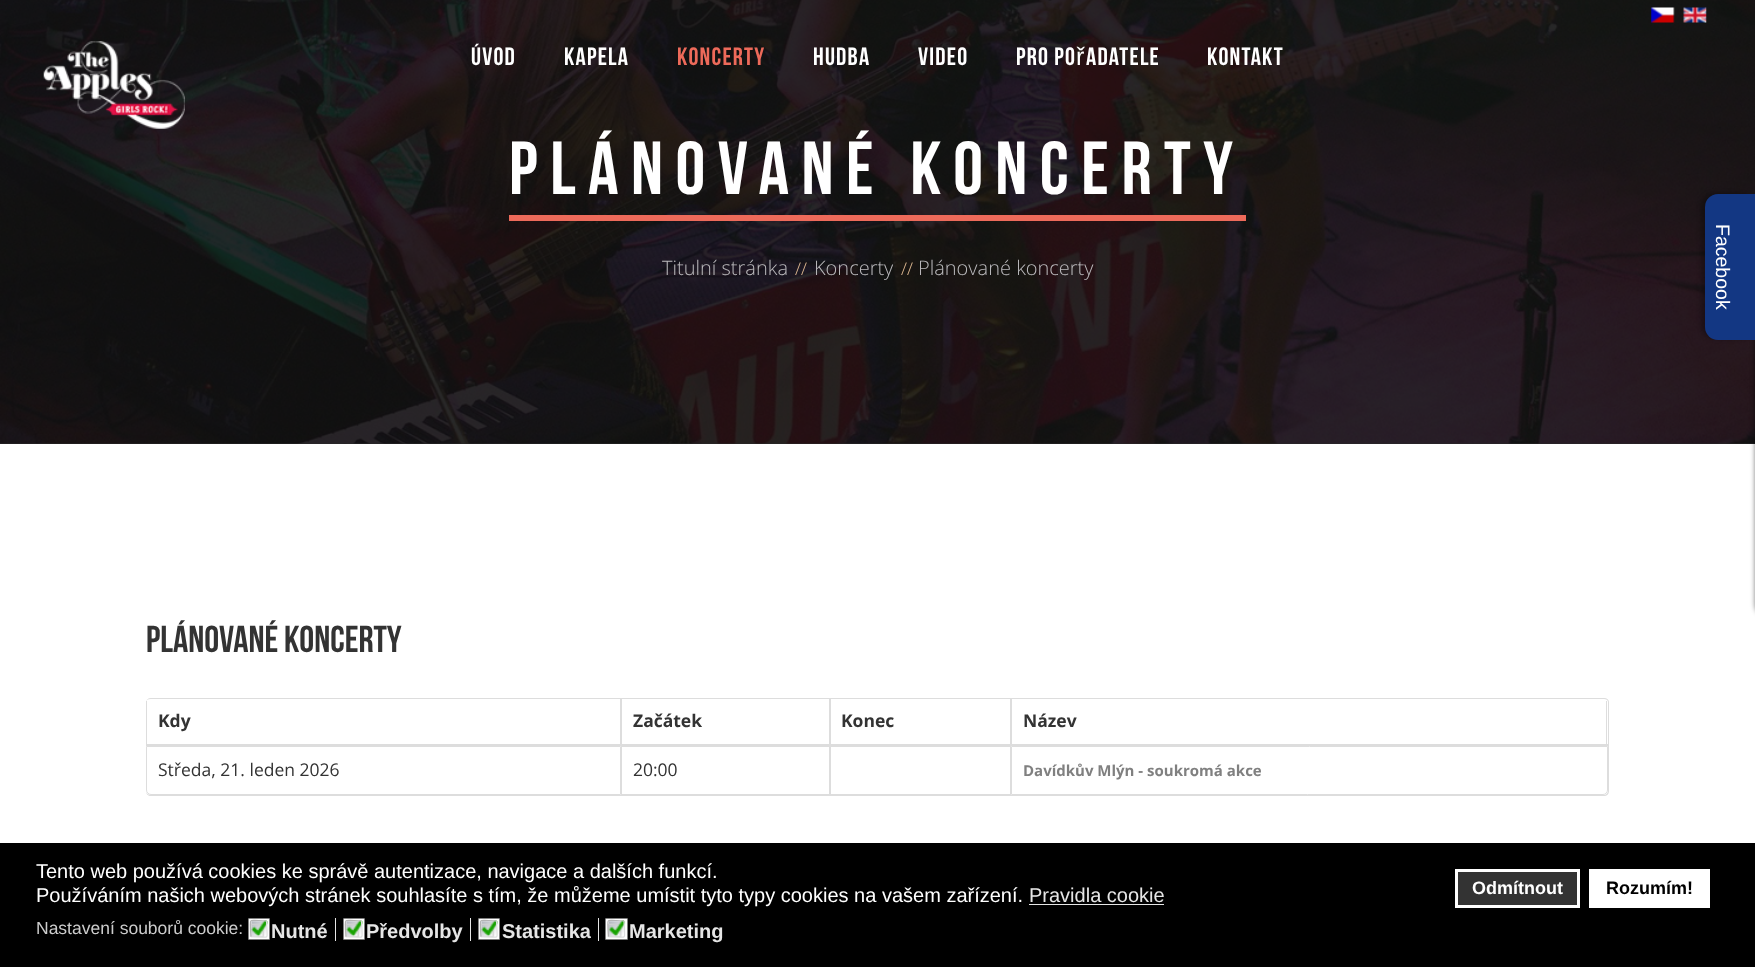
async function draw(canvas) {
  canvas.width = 1755;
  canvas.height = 967;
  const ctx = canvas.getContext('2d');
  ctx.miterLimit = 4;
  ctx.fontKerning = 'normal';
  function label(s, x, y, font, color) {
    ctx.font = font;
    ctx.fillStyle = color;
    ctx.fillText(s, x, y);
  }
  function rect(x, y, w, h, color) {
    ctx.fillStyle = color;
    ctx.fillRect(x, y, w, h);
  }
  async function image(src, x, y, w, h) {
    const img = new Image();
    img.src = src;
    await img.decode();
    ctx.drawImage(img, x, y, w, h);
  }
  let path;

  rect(0, 0, 1755, 967, '#fff');
  rect(0, 443, 1755, 1, '#282828');
  await image('assets/img4.png', 0, 0, 1755, 444);
  await image('assets/img1.png', 1651, 7, 24, 16);
  await image('assets/img2.png', 1683, 7, 24, 16);
  await image('assets/img3.png', 43, 41, 142, 88);
  ctx.letterSpacing = '1.25px';
  label('Úvod', 471, 65, 'bold 25px Bebas Neue', '#fff');
  label('Kapela', 564, 65, 'bold 25px Bebas Neue', '#fff');
  label('Koncerty', 677, 65, 'bold 25px Bebas Neue', '#ed6a5a');
  label('Hudba', 813, 65, 'bold 25px Bebas Neue', '#fff');
  label('Video', 918, 65, 'bold 25px Bebas Neue', '#fff');
  label('Pro po', 1016, 65, 'bold 25px Bebas Neue', '#fff');
  label('ř', 1076, 65, '25px Liberation Sans', '#fff');
  label('adatele', 1086, 65, 'bold 25px Bebas Neue', '#fff');
  label('Kontakt', 1207, 65, 'bold 25px Bebas Neue', '#fff');
  ctx.letterSpacing = '12.5px';
  label('Plánované koncerty', 509, 194, 'bold 75px Bebas Neue', '#fff');
  rect(509, 215, 737, 6, '#ed6a5a');
  ctx.letterSpacing = '0px';
  label('Titulní stránka', 662, 275, '300 20px Open Sans', '#bbbabd');
  label('//', 795, 275, '300 17.5px Open Sans', '#e2bc93');
  label('Koncerty', 814, 275, '300 20px Open Sans', '#bbbabd');
  label('//', 901, 275, '300 17.5px Open Sans', '#e2bc93');
  label('Plánované koncerty', 918, 275, '300 20px Open Sans', '#bbbabd');
  ctx.fillStyle = '#00000080';
  ctx.filter = 'blur(2.5px)';
  ctx.beginPath();
  ctx.roundRect(1755, 194, 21, 421, 13);
  ctx.fill();
  ctx.filter = 'none';
  ctx.fillStyle = '#00000040';
  ctx.filter = 'blur(2px)';
  ctx.beginPath();
  ctx.roundRect(1701, 193, 50, 146, 13);
  ctx.fill();
  ctx.filter = 'none';
  ctx.fillStyle = '#133783';
  ctx.beginPath();
  ctx.roundRect(1705, 194, 50, 146, [13, 0, 0, 13]);
  ctx.fill();
  ctx.font = '19.5px Liberation Sans';
  ctx.fillStyle = '#fff';
  ctx.save();
  ctx.translate(1716, 224);
  ctx.rotate(90 * Math.PI / 180);
  ctx.fillText('Facebook', 0, 0);
  ctx.restore();
  label('Plánované koncerty', 146, 652, 'bold 37.5px Bebas Neue', '#333');
  ctx.fillStyle = '#ddd';
  path = new Path2D('M151 698H1604C1607 698 1609 700 1609 702V791C1609 794 1607 796 1604 796H151C148 796 146 794 146 791V702C146 700 148 698 151 698ZM151 699H1604C1606 699 1608 700 1608 702V791C1608 793 1606 795 1604 795H151C148 795 146 793 146 791V702C146 700 148 699 151 699Z');
  ctx.fill(path, 'evenodd');
  rect(620, 699, 1, 47, '#ddd');
  rect(146, 744, 475, 2, '#ddd');
  rect(146, 701, 1, 45, '#ddd');
  label('Kdy', 158, 727, 'bold 17.5px Open Sans', '#333');
  rect(829, 699, 1, 47, '#ddd');
  rect(621, 744, 209, 2, '#ddd');
  rect(621, 699, 1, 47, '#ddd');
  label('Začátek', 633, 727, 'bold 17.5px Open Sans', '#333');
  rect(1010, 699, 1, 47, '#ddd');
  rect(830, 744, 181, 2, '#ddd');
  rect(830, 699, 1, 47, '#ddd');
  label('Konec', 841, 727, 'bold 17.5px Open Sans', '#333');
  rect(1606, 701, 1, 45, '#ddd');
  rect(1011, 744, 597, 2, '#ddd');
  rect(1011, 699, 1, 47, '#ddd');
  label('Název', 1023, 727, 'bold 17.5px Open Sans', '#333');
  ctx.beginPath();
  ctx.roundRect(146.5, 746.5, 474, 48, [0, 0, 0, 4.5]);
  ctx.strokeStyle = '#ddd';
  ctx.stroke();
  label('Středa, 21. leden 2026', 158, 776, '17.5px Open Sans', '#333');
  ctx.strokeRect(621.5, 746.5, 208, 48);
  label('20:00', 633, 776, '17.5px Open Sans', '#333');
  ctx.strokeRect(830.5, 746.5, 180, 48);
  ctx.beginPath();
  ctx.roundRect(1011.5, 746.5, 596, 48, [0, 0, 4.5, 0]);
  ctx.stroke();
  label('Davídkův Mlýn - soukromá akce', 1023, 776, 'bold 15px Open Sans', '#808080');
  rect(0, 843, 1755, 124, '#000');
  label('Tento web používá cookies ke správě autentizace, navigace a dalších funkcí.', 36, 878, '20px Liberation Sans', '#fff');
  label('Používáním našich webových stránek souhlasíte s tím, že můžeme umístit tyto typy cookies na vašem zařízení.', 36, 902, '20px Liberation Sans', '#fff');
  label('Pravidla cookie', 1029, 902, '20px Liberation Sans', '#e6e6e6');
  rect(1029, 904, 135, 1, '#e6e6e6');
  ctx.fillStyle = '#333';
  ctx.beginPath();
  ctx.rect(1456.5, 870.5, 122, 36);
  ctx.fill();
  ctx.strokeStyle = '#fff';
  ctx.lineWidth = 3;
  ctx.stroke();
  label('Odmítnout', 1472, 894, 'bold 18px Liberation Sans', '#fff');
  rect(1589, 869, 121, 39, '#fff');
  label('Rozumím!', 1606, 894, 'bold 18px Liberation Sans', '#000');
  label('Nastavení souborů cookie:', 36, 934, '17.5px Liberation Sans', '#ccc');
  ctx.fillStyle = '#fff';
  ctx.beginPath();
  ctx.roundRect(248.5, 918.5, 21, 21, 0.5);
  ctx.fill();
  ctx.strokeStyle = '#808080';
  ctx.lineWidth = 1;
  ctx.stroke();
  await image('assets/img5.png', 249, 920, 19, 18);
  path = new Path2D('M266.5 921L267 929C267 939 269 937 259 937L251 936.5');
  ctx.strokeStyle = '#dcddde';
  ctx.lineWidth = 1.2;
  ctx.stroke(path);
  path = new Path2D('M251 936.5L250.5 929C250.5 918.5 248.5 920.5 259 920.5L266.5 921');
  ctx.strokeStyle = '#b3b3b3';
  ctx.stroke(path);
  rect(335, 918, 1, 23, '#e6e6e6');
  label('Nutné', 271, 938, 'bold 20px Liberation Sans', '#e6e6e6');
  ctx.fillStyle = '#fff';
  ctx.beginPath();
  ctx.roundRect(343.5, 918.5, 21, 21, 0.5);
  ctx.fill();
  ctx.strokeStyle = '#808080';
  ctx.lineWidth = 1;
  ctx.stroke();
  await image('assets/img5.png', 344, 920, 19, 18);
  path = new Path2D('M361.5 921L362 929C362 939 364 937 354 937L346 936.5');
  ctx.strokeStyle = '#dcddde';
  ctx.lineWidth = 1.2;
  ctx.stroke(path);
  path = new Path2D('M346 936.5L345.5 929C345.5 918.5 343.5 920.5 354 920.5L361.5 921');
  ctx.strokeStyle = '#b3b3b3';
  ctx.stroke(path);
  rect(470, 918, 1, 23, '#e6e6e6');
  label('Předvolby', 366, 938, 'bold 20px Liberation Sans', '#e6e6e6');
  ctx.fillStyle = '#fff';
  ctx.beginPath();
  ctx.roundRect(478.5, 918.5, 21, 21, 0.5);
  ctx.fill();
  ctx.strokeStyle = '#808080';
  ctx.lineWidth = 1;
  ctx.stroke();
  await image('assets/img5.png', 479, 920, 19, 18);
  path = new Path2D('M496.5 921L497 929C497 939 499 937 489 937L481 936.5');
  ctx.strokeStyle = '#dcddde';
  ctx.lineWidth = 1.2;
  ctx.stroke(path);
  path = new Path2D('M481 936.5L480.5 929C480.5 918.5 478.5 920.5 489 920.5L496.5 921');
  ctx.strokeStyle = '#b3b3b3';
  ctx.stroke(path);
  rect(598, 918, 1, 23, '#e6e6e6');
  label('Statistika', 502, 938, 'bold 20px Liberation Sans', '#e6e6e6');
  ctx.fillStyle = '#fff';
  ctx.beginPath();
  ctx.roundRect(605.5, 918.5, 22, 21, 0.5);
  ctx.fill();
  ctx.strokeStyle = '#808080';
  ctx.lineWidth = 1;
  ctx.stroke();
  await image('assets/img6.png', 607, 920, 19, 18);
  path = new Path2D('M624 921L624.5 929C624.5 939 626.5 937 616 937L608.5 936.5');
  ctx.strokeStyle = '#dcddde';
  ctx.lineWidth = 1.2;
  ctx.stroke(path);
  path = new Path2D('M608.5 936.5L608 929C608 918.5 606 920.5 616 920.5L624 921');
  ctx.strokeStyle = '#b3b3b3';
  ctx.stroke(path);
  label('Marketing', 629, 938, 'bold 20px Liberation Sans', '#e6e6e6');
}

draw(document.querySelector('canvas'));
